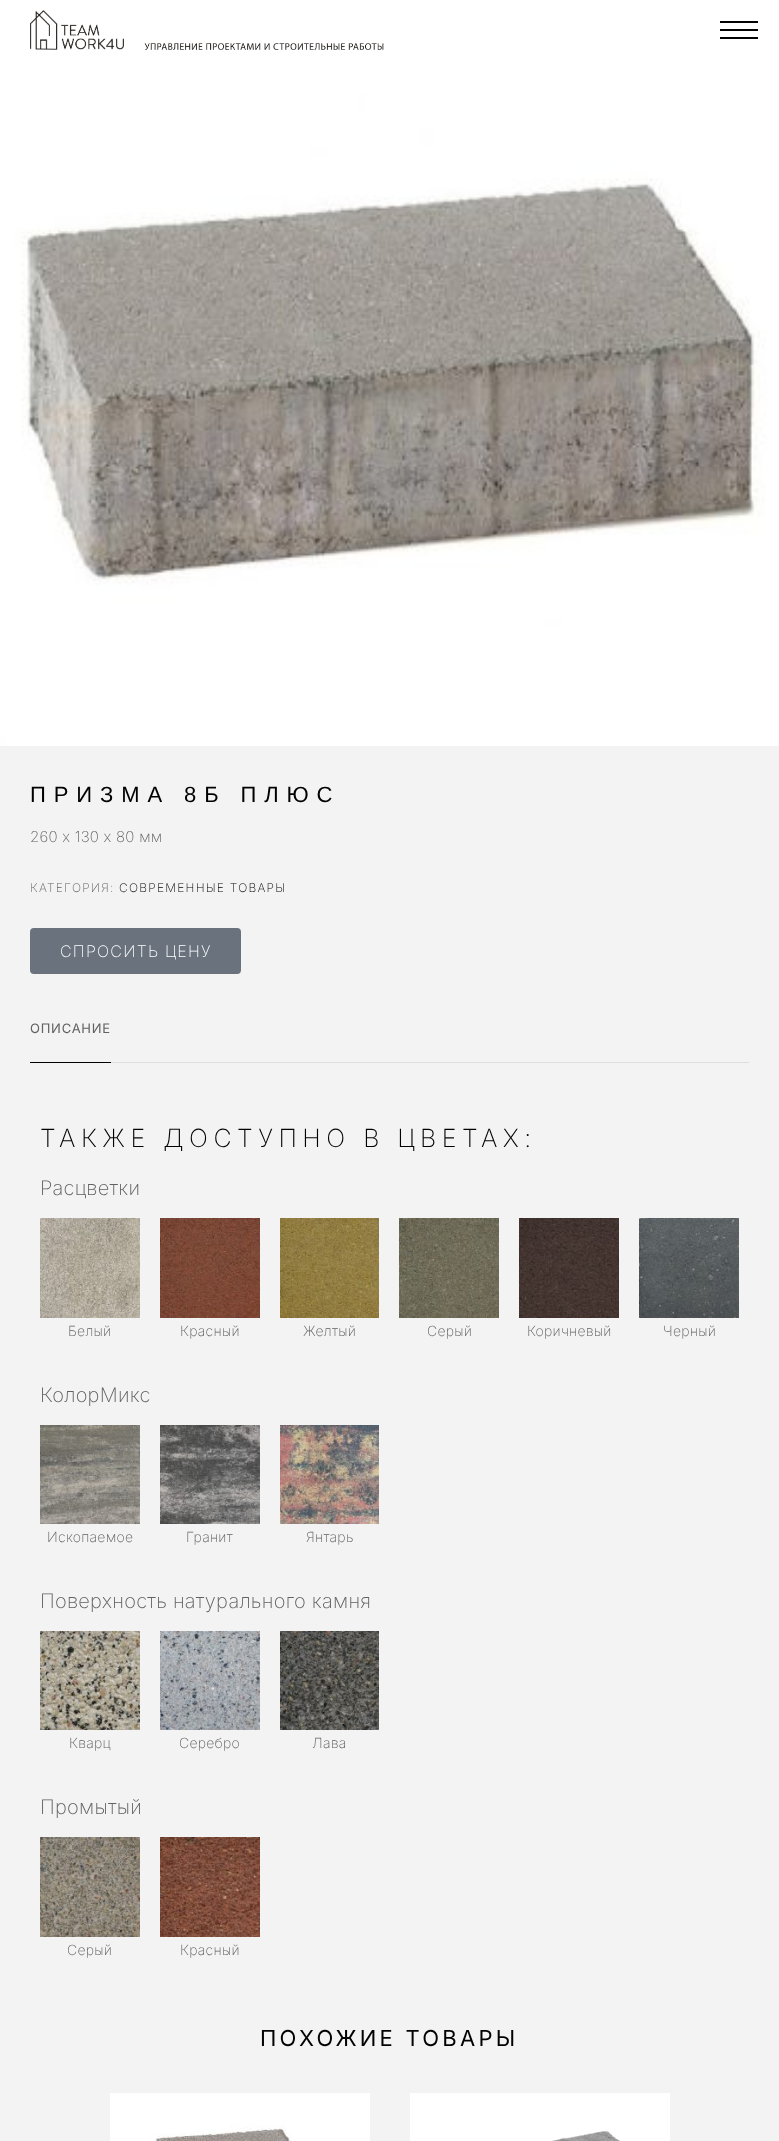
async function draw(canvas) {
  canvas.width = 779;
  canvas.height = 2141;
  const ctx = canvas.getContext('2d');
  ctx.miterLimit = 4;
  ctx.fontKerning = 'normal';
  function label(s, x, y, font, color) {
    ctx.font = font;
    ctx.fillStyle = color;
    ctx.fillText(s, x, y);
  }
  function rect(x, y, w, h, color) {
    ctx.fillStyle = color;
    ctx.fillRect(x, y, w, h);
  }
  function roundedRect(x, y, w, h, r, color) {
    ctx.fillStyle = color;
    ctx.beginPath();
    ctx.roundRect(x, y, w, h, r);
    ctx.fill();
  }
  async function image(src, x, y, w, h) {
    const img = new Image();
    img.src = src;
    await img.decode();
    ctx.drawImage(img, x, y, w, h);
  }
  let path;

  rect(0, 0, 779, 2141, '#f3f3f3');
  rect(0, 0, 779, 60, '#fff');
  await image('assets/img1.png', 30, 10, 94, 40);
  await image('assets/img2.png', 144, 43, 240, 7);
  ctx.fillStyle = '#000';
  path = new Path2D('M758 37V39H720V37ZM758 29V31H720V29ZM758 21V23H720V21Z');
  ctx.fill(path);
  await image('assets/img3.png', 0, 60, 779, 686);
  ctx.letterSpacing = '7.9px';
  label('ПРИЗМА 8Б ПЛЮС', 30, 802, '22px Liberation Sans', '#000');
  ctx.letterSpacing = '0.25px';
  label('260 x 130 x 80 мм', 30, 842, '200 15px Inter', '#616161');
  ctx.letterSpacing = '1.25px';
  label('КАТЕГОРИЯ:', 30, 892, '200 12px Inter', '#616161');
  label('СОВРЕМЕННЫЕ ТОВАРЫ', 119, 892, '200 12px Inter', '#000');
  roundedRect(30, 928, 211, 46, 4, '#69727d');
  label('СПРОСИТЬ ЦЕНУ', 60, 957, '200 16px Inter', '#fff');
  rect(30, 1062, 81, 1, '#000');
  ctx.letterSpacing = '0.75px';
  label('ОПИСАНИЕ', 30, 1033, '13px Inter', '#616161');
  rect(111, 1062, 638, 1, '#dedede');
  ctx.letterSpacing = '5.5px';
  label('ТАКЖЕ ДОСТУПНО В ЦВЕТАХ:', 40, 1147, '200 25px Inter', '#000');
  ctx.letterSpacing = '0.25px';
  label('Расцветки', 40, 1195, '200 20px Inter', '#616161');
  await image('assets/img4.png', 40, 1218, 100, 100);
  label('Белый', 68, 1336, '200 14px Inter', '#616161');
  await image('assets/img5.png', 160, 1218, 100, 100);
  label('Красный', 180, 1336, '200 14px Inter', '#616161');
  await image('assets/img6.png', 280, 1218, 99, 100);
  label('Желтый', 303, 1336, '200 14px Inter', '#616161');
  await image('assets/img7.png', 399, 1218, 100, 100);
  label('Серый', 427, 1336, '200 14px Inter', '#616161');
  await image('assets/img8.png', 519, 1218, 100, 100);
  label('Коричневый', 527, 1336, '200 14px Inter', '#616161');
  await image('assets/img9.png', 639, 1218, 100, 100);
  label('Черный', 663, 1336, '200 14px Inter', '#616161');
  label('КолорМикс', 40, 1402, '200 20px Inter', '#616161');
  await image('assets/img10.png', 40, 1425, 100, 99);
  label('Ископаемое', 47, 1542, '200 14px Inter', '#616161');
  await image('assets/img11.png', 160, 1425, 100, 99);
  label('Гранит', 186, 1542, '200 14px Inter', '#616161');
  await image('assets/img12.png', 280, 1425, 99, 99);
  label('Янтарь', 306, 1542, '200 14px Inter', '#616161');
  label('Поверхность натурального камня', 40, 1608, '200 20px Inter', '#616161');
  await image('assets/img13.png', 40, 1631, 100, 99);
  label('Кварц', 69, 1748, '200 14px Inter', '#616161');
  await image('assets/img14.png', 160, 1631, 100, 99);
  label('Серебро', 179, 1748, '200 14px Inter', '#616161');
  await image('assets/img15.png', 280, 1631, 99, 99);
  label('Лава', 312, 1748, '200 14px Inter', '#616161');
  label('Промытый', 40, 1814, '200 20px Inter', '#616161');
  await image('assets/img16.png', 40, 1837, 100, 100);
  label('Серый', 67, 1955, '200 14px Inter', '#616161');
  await image('assets/img17.png', 160, 1837, 100, 100);
  label('Красный', 180, 1955, '200 14px Inter', '#616161');
  ctx.letterSpacing = '3.25px';
  label('ПОХОЖИЕ ТОВАРЫ', 260, 2046, '22px Inter', '#000');
  rect(110, 2093, 260, 48, '#fff');
  await image('assets/img18.png', 150, 2125, 144, 16);
  rect(410, 2093, 260, 48, '#fff');
  await image('assets/img19.png', 552, 2131, 68, 10);
}

draw(document.querySelector('canvas'));
